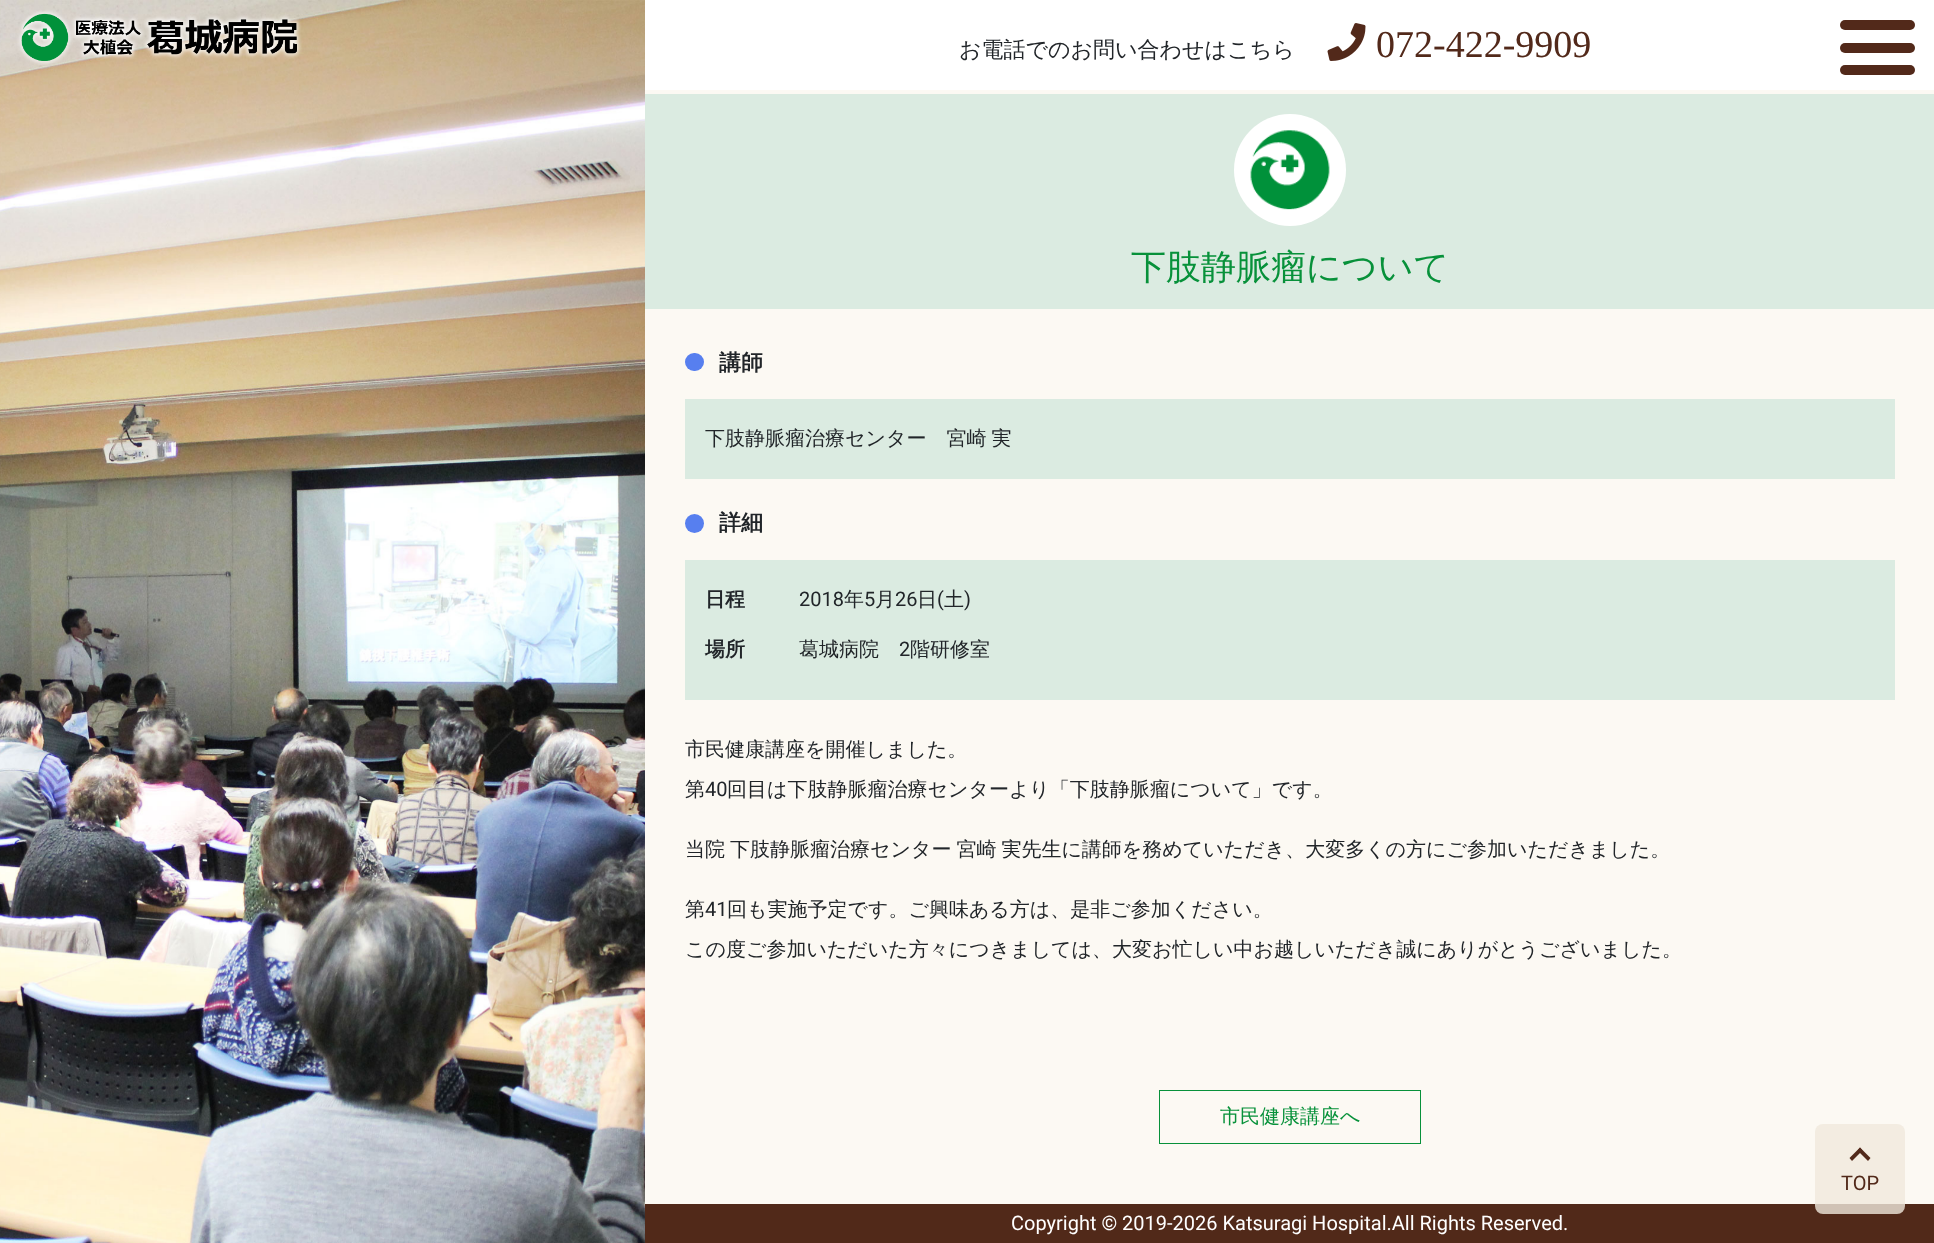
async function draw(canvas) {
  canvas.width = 1934;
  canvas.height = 1243;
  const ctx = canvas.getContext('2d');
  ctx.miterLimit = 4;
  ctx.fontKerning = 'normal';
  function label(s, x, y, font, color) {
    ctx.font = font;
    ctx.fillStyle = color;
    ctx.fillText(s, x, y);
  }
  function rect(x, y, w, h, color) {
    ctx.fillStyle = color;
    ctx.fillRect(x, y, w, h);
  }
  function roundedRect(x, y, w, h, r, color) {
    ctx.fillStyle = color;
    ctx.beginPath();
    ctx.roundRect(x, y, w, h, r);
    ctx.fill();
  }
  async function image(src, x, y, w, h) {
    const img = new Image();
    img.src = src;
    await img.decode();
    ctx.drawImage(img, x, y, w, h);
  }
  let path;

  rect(0, 0, 1934, 1243, '#fff');
  await image('assets/img3.png', 0, 0, 645, 1243);
  await image('assets/img1.png', 17, 10, 285, 55);
  label('お電話でのお問い合わせはこちら', 959, 57, '500 22px WenQuanYi Zen Hei', '#212529');
  await image('assets/img2.png', 1327, 23, 39, 38);
  label('072-422-9909', 1376, 57, '38px Liberation Serif', '#52291a');
  roundedRect(1840, 20, 75, 10, 5, '#52291a');
  roundedRect(1840, 43, 75, 10, 5, '#52291a');
  roundedRect(1840, 65, 75, 10, 5, '#52291a');
  rect(645, 90, 1289, 1114, '#fcf9f3');
  rect(645, 94, 1289, 215, '#dbebe1');
  ctx.fillStyle = '#fff';
  ctx.beginPath();
  ctx.arc(1290, 170, 56, 0, 2 * Math.PI);
  ctx.fill();
  await image('assets/img4.png', 1250, 130, 80, 80);
  label('下肢静脈瘤について', 1131, 279, '500 35px WenQuanYi Zen Hei', '#07913a');
  roundedRect(685, 353, 19, 18, 9, '#577fef');
  label('講師', 719, 370, 'bold 22px WenQuanYi Zen Hei', '#212529');
  rect(685, 399, 1210, 80, '#dbebe1');
  ctx.wordSpacing = '-1px';
  label('下肢静脈瘤治療センター　宮崎 実', 705, 445, '500 20px WenQuanYi Zen Hei', '#212529');
  ctx.fillStyle = '#577fef';
  ctx.beginPath();
  ctx.arc(694.5, 523.5, 9.5, 0, 2 * Math.PI);
  ctx.fill();
  ctx.wordSpacing = '0px';
  label('詳細', 719, 530, 'bold 22px WenQuanYi Zen Hei', '#212529');
  rect(685, 560, 1210, 140, '#dbebe1');
  label('日程', 705, 606, 'bold 20px WenQuanYi Zen Hei', '#212529');
  label('2018', 799, 606, '20px Roboto', '#212529');
  label('年', 844, 606, '500 20px WenQuanYi Zen Hei', '#212529');
  label('5', 864, 606, '20px Roboto', '#212529');
  label('月', 875, 606, '500 20px WenQuanYi Zen Hei', '#212529');
  label('26', 895, 606, '20px Roboto', '#212529');
  label('日', 917, 606, '500 20px WenQuanYi Zen Hei', '#212529');
  label('(', 937, 606, '20px Roboto', '#212529');
  label('土', 944, 606, '500 20px WenQuanYi Zen Hei', '#212529');
  label(')', 964, 606, '20px Roboto', '#212529');
  label('場所', 705, 656, 'bold 20px WenQuanYi Zen Hei', '#212529');
  label('葛城病院', 799, 656, '500 20px WenQuanYi Zen Hei', '#212529');
  label('2', 899, 656, '20px Roboto', '#212529');
  label('階研修室', 910, 656, '500 20px WenQuanYi Zen Hei', '#212529');
  label('市民健康講座を開催しました。', 685, 756, '500 20px WenQuanYi Zen Hei', '#212529');
  label('第', 685, 796, '500 20px WenQuanYi Zen Hei', '#212529');
  label('40', 705, 796, '20px Roboto', '#212529');
  label('回目は下肢静脈瘤治療センターより「下肢静脈瘤について」です。', 727, 796, '500 20px WenQuanYi Zen Hei', '#212529');
  ctx.wordSpacing = '-1px';
  label('当院 下肢静脈瘤治療センター 宮崎 実先生に講師を務めていただき、大変多くの方にご参加いただきました。', 685, 856, '500 20px WenQuanYi Zen Hei', '#212529');
  ctx.wordSpacing = '0px';
  label('第', 685, 916, '500 20px WenQuanYi Zen Hei', '#212529');
  label('41', 705, 916, '20px Roboto', '#212529');
  label('回も実施予定です。ご興味ある方は、是非ご参加ください。', 727, 916, '500 20px WenQuanYi Zen Hei', '#212529');
  label('この度ご参加いただいた方々につきましては、大変お忙しい中お越しいただき誠にありがとうございました。', 685, 956, '500 20px WenQuanYi Zen Hei', '#212529');
  ctx.strokeStyle = '#07913a';
  ctx.strokeRect(1159.5, 1090.5, 261, 53);
  label('市民健康講座へ', 1220, 1123, '500 20px WenQuanYi Zen Hei', '#07913a');
  rect(645, 1204, 1289, 39, '#512919');
  label('Copyright © 2019-2026 Katsuragi Hospital.All Rights Reserved.', 1011, 1230, '20px Roboto', '#fff');
  roundedRect(1815, 1124, 90, 90, 8, '#f0e9dccc');
  ctx.fillStyle = '#52291a';
  path = new Path2D('M1860 1147.5L1870.5 1158L1868 1161L1857.5 1150.5Z');
  ctx.fill(path);
  path = new Path2D('M1860 1147.5L1862.5 1150.5L1852 1161L1849.5 1158Z');
  ctx.fill(path);
  label('TOP', 1841, 1190, '20px Roboto', '#52291a');
}

draw(document.querySelector('canvas'));
